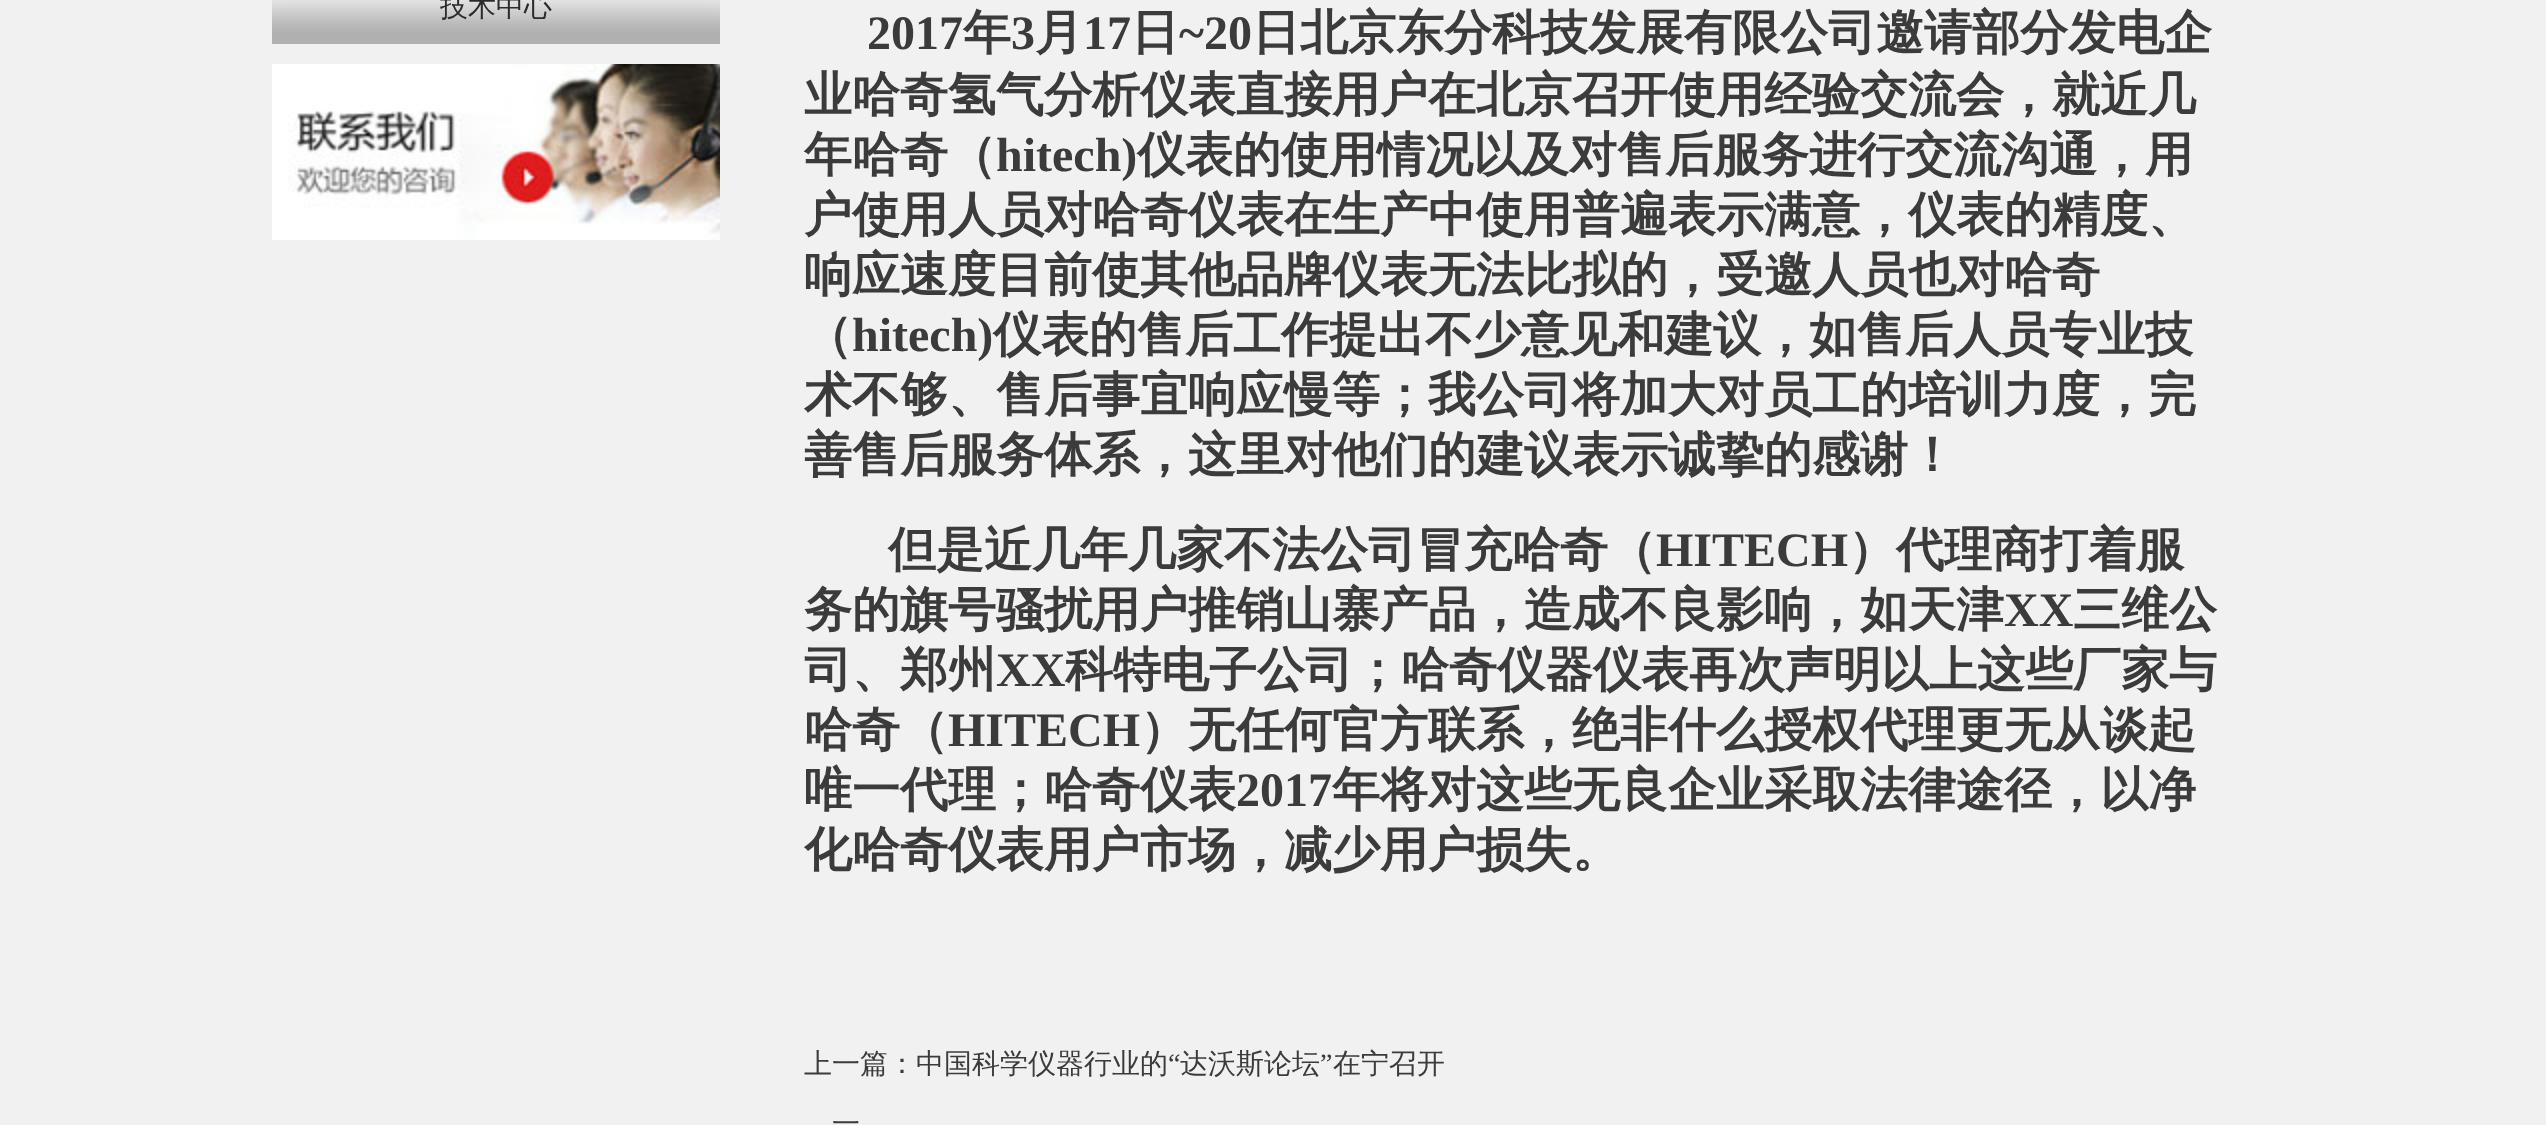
async function draw(canvas) {
  canvas.width = 2546;
  canvas.height = 1125;
  const ctx = canvas.getContext('2d');
  ctx.miterLimit = 4;
  ctx.fontKerning = 'normal';
  function label(s, x, y, font, color) {
    ctx.font = font;
    ctx.fillStyle = color;
    ctx.fillText(s, x, y);
  }
  function rect(x, y, w, h, color) {
    ctx.fillStyle = color;
    ctx.fillRect(x, y, w, h);
  }
  async function image(src, x, y, w, h) {
    const img = new Image();
    img.src = src;
    await img.decode();
    ctx.drawImage(img, x, y, w, h);
  }

  rect(0, 0, 2546, 1125, '#f1f1f1');
  await image('assets/img1.png', 272, 0, 448, 44);
  label('技术中心', 440, 16, '500 28px WenQuanYi Zen Hei', '#2b2b2b');
  await image('assets/img2.png', 272, 64, 448, 176);
  label('2017', 867, 49, 'bold 48px Liberation Serif', '#3b3b3c');
  label('年', 963, 49, 'bold 48px WenQuanYi Zen Hei', '#3b3b3c');
  label('3', 1011, 49, 'bold 48px Liberation Serif', '#3b3b3c');
  label('月', 1035, 49, 'bold 48px WenQuanYi Zen Hei', '#3b3b3c');
  label('17', 1083, 49, 'bold 48px Liberation Serif', '#3b3b3c');
  label('日', 1131, 49, 'bold 48px WenQuanYi Zen Hei', '#3b3b3c');
  label('~20', 1179, 49, 'bold 48px Liberation Serif', '#3b3b3c');
  label('日北京东分科技发展有限公司邀请部分发电企', 1252, 49, 'bold 48px WenQuanYi Zen Hei', '#3b3b3c');
  label('业哈奇氢气分析仪表直接用户在北京召开使用经验交流会，就近几', 804, 111, 'bold 48px WenQuanYi Zen Hei', '#3b3b3c');
  label('年哈奇（', 804, 171, 'bold 48px WenQuanYi Zen Hei', '#3b3b3c');
  label('hitech)', 996, 171, 'bold 48px Liberation Serif', '#3b3b3c');
  label('仪表的使用情况以及对售后服务进行交流沟通，用', 1137, 171, 'bold 48px WenQuanYi Zen Hei', '#3b3b3c');
  label('户使用人员对哈奇仪表在生产中使用普遍表示满意，仪表的精度、', 804, 231, 'bold 48px WenQuanYi Zen Hei', '#3b3b3c');
  label('响应速度目前使其他品牌仪表无法比拟的，受邀人员也对哈奇', 804, 291, 'bold 48px WenQuanYi Zen Hei', '#3b3b3c');
  label('（', 804, 351, 'bold 48px WenQuanYi Zen Hei', '#3b3b3c');
  label('hitech)', 852, 351, 'bold 48px Liberation Serif', '#3b3b3c');
  label('仪表的售后工作提出不少意见和建议，如售后人员专业技', 993, 351, 'bold 48px WenQuanYi Zen Hei', '#3b3b3c');
  label('术不够、售后事宜响应慢等；我公司将加大对员工的培训力度，完', 804, 411, 'bold 48px WenQuanYi Zen Hei', '#3b3b3c');
  label('善售后服务体系，这里对他们的建议表示诚挚的感谢！', 804, 471, 'bold 48px WenQuanYi Zen Hei', '#3b3b3c');
  label('但是近几年几家不法公司冒充哈奇（', 888, 566, 'bold 48px WenQuanYi Zen Hei', '#3b3b3c');
  label('HITECH', 1656, 566, 'bold 48px Liberation Serif', '#3b3b3c');
  label('）代理商打着服', 1848, 566, 'bold 48px WenQuanYi Zen Hei', '#3b3b3c');
  label('务的旗号骚扰用户推销山寨产品，造成不良影响，如天津', 804, 626, 'bold 48px WenQuanYi Zen Hei', '#3b3b3c');
  label('XX', 2004, 626, 'bold 48px Liberation Serif', '#3b3b3c');
  label('三维公', 2073, 626, 'bold 48px WenQuanYi Zen Hei', '#3b3b3c');
  label('司、郑州', 804, 686, 'bold 48px WenQuanYi Zen Hei', '#3b3b3c');
  label('XX', 996, 686, 'bold 48px Liberation Serif', '#3b3b3c');
  label('科特电子公司；哈奇仪器仪表再次声明以上这些厂家与', 1065, 686, 'bold 48px WenQuanYi Zen Hei', '#3b3b3c');
  label('哈奇（', 804, 746, 'bold 48px WenQuanYi Zen Hei', '#3b3b3c');
  label('HITECH', 948, 746, 'bold 48px Liberation Serif', '#3b3b3c');
  label('）无任何官方联系，绝非什么授权代理更无从谈起', 1140, 746, 'bold 48px WenQuanYi Zen Hei', '#3b3b3c');
  label('唯一代理；哈奇仪表', 804, 806, 'bold 48px WenQuanYi Zen Hei', '#3b3b3c');
  label('2017', 1236, 806, 'bold 48px Liberation Serif', '#3b3b3c');
  label('年将对这些无良企业采取法律途径，以净', 1332, 806, 'bold 48px WenQuanYi Zen Hei', '#3b3b3c');
  label('化哈奇仪表用户市场，减少用户损失。', 804, 866, 'bold 48px WenQuanYi Zen Hei', '#3b3b3c');
  label('上一篇：中国科学仪器行业的', 804, 1073, '500 28px WenQuanYi Zen Hei', '#3b3b3c');
  label('“', 1168, 1073, '28px Liberation Serif', '#3b3b3c');
  label('达沃斯论坛', 1180, 1073, '500 28px WenQuanYi Zen Hei', '#3b3b3c');
  label('”', 1320, 1073, '28px Liberation Serif', '#3b3b3c');
  label('在宁召开', 1333, 1073, '500 28px WenQuanYi Zen Hei', '#3b3b3c');
  label('一', 832, 1133, '500 28px WenQuanYi Zen Hei', '#3b3b3c');
}

draw(document.querySelector('canvas'));
